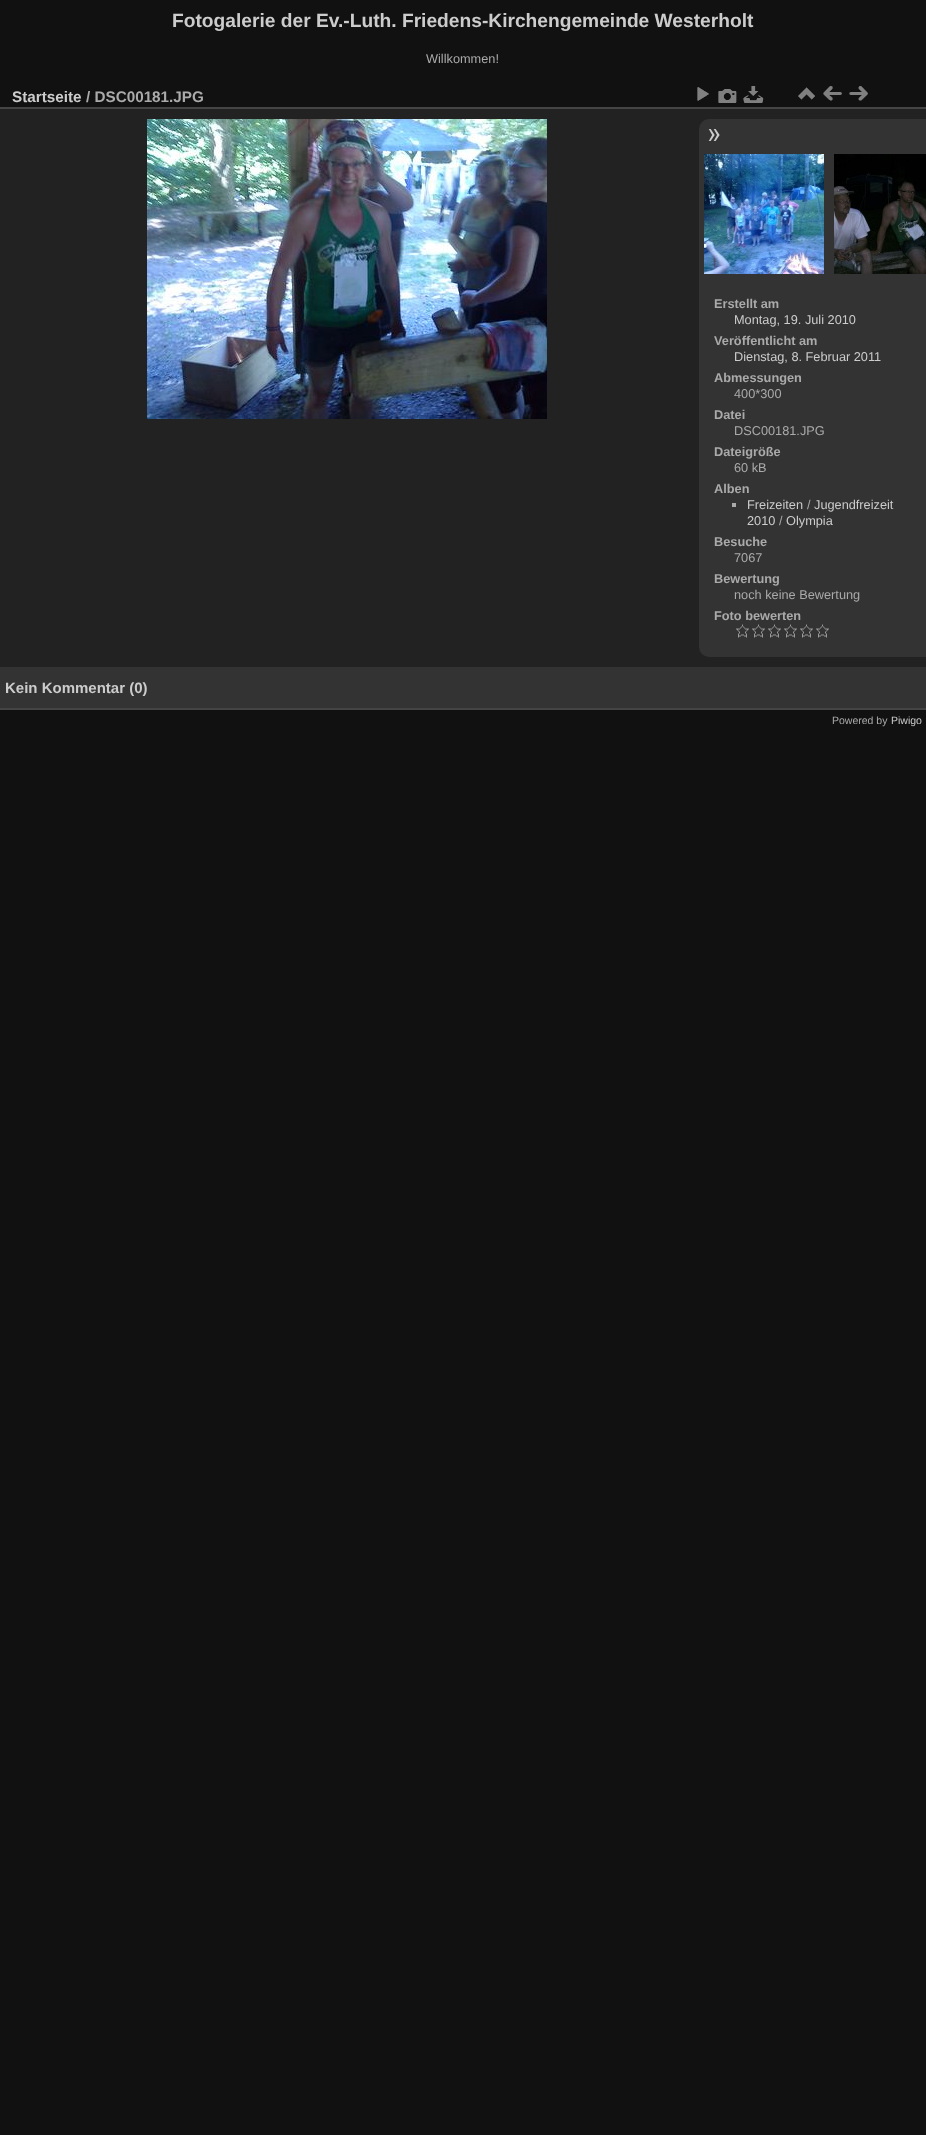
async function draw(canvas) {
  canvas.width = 926;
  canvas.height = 2135;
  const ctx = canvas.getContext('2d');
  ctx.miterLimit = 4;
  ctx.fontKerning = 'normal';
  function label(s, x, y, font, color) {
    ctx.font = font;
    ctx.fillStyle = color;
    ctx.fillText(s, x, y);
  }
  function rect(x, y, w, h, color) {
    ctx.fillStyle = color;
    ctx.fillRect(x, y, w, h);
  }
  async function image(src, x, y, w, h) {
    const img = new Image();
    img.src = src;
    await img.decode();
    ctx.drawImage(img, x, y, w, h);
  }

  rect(0, 0, 926, 2135, '#111');
  label('Fotogalerie der Ev.-Luth. Friedens-Kirchengemeinde Westerholt', 172, 27, 'bold 19.2px Liberation Sans', '#ccc');
  label('Willkommen!', 426, 63, '12.75px Liberation Sans', '#aaa');
  rect(0, 109, 926, 558, '#222');
  rect(0, 708, 926, 2, '#444');
  rect(0, 107, 926, 2, '#444');
  label('Startseite', 12, 102, 'bold 15.25px Liberation Sans', '#ccc');
  label('/ DSC00181.JPG', 86, 102, 'bold 15.25px Liberation Sans', '#aaa');
  await image('assets/img1.png', 697, 87, 12, 14);
  await image('assets/img2.png', 718, 89, 19, 14);
  await image('assets/img3.png', 743, 86, 21, 17);
  await image('assets/img4.png', 798, 87, 17, 13);
  await image('assets/img5.png', 823, 86, 19, 15);
  await image('assets/img6.png', 849, 86, 19, 15);
  await image('assets/img7.png', 147, 119, 400, 300);
  ctx.fillStyle = '#333';
  ctx.beginPath();
  ctx.roundRect(699, 119, 227, 538, [10, 0, 0, 10]);
  ctx.fill();
  await image('assets/img8.png', 708, 129, 12, 12);
  await image('assets/img9.png', 704, 154, 120, 120);
  await image('assets/img10.png', 834, 154, 92, 120);
  label('Erstellt am', 714, 308, 'bold 12.75px Liberation Sans', '#aaa');
  label('Montag, 19. Juli 2010', 734, 324, '12.75px Liberation Sans', '#ccc');
  label('Veröffentlicht am', 714, 345, 'bold 12.75px Liberation Sans', '#aaa');
  label('Dienstag, 8. Februar 2011', 734, 361, '12.75px Liberation Sans', '#ccc');
  label('Abmessungen', 714, 382, 'bold 12.75px Liberation Sans', '#aaa');
  label('400*300', 734, 398, '12.75px Liberation Sans', '#aaa');
  label('Datei', 714, 419, 'bold 12.75px Liberation Sans', '#aaa');
  label('DSC00181.JPG', 734, 435, '12.75px Liberation Sans', '#aaa');
  label('Dateigröße', 714, 456, 'bold 12.75px Liberation Sans', '#aaa');
  label('60 kB', 734, 472, '12.75px Liberation Sans', '#aaa');
  label('Alben', 714, 493, 'bold 12.75px Liberation Sans', '#aaa');
  rect(732, 503, 4, 4, '#aaa');
  label('Freizeiten', 747, 509, '12.75px Liberation Sans', '#ccc');
  label('/', 807, 509, '12.75px Liberation Sans', '#aaa');
  label('Jugendfreizeit', 814, 509, '12.75px Liberation Sans', '#ccc');
  label('2010', 747, 525, '12.75px Liberation Sans', '#ccc');
  label('/', 779, 525, '12.75px Liberation Sans', '#aaa');
  label('Olympia', 786, 525, '12.75px Liberation Sans', '#ccc');
  label('Besuche', 714, 546, 'bold 12.75px Liberation Sans', '#aaa');
  label('7067', 734, 562, '12.75px Liberation Sans', '#aaa');
  label('Bewertung', 714, 583, 'bold 12.75px Liberation Sans', '#aaa');
  label('noch keine Bewertung', 734, 599, '12.75px Liberation Sans', '#aaa');
  label('Foto bewerten', 714, 620, 'bold 12.75px Liberation Sans', '#aaa');
  await image('assets/img11.png', 736, 624, 13, 14);
  await image('assets/img11.png', 752, 624, 13, 14);
  await image('assets/img11.png', 768, 624, 13, 14);
  await image('assets/img11.png', 784, 624, 13, 14);
  await image('assets/img11.png', 800, 624, 13, 14);
  await image('assets/img11.png', 816, 624, 13, 14);
  rect(0, 667, 926, 41, '#333');
  label('Kein Kommentar (0)', 5, 693, 'bold 15px Liberation Sans', '#ccc');
  label('Powered by', 832, 724, '10.5px Liberation Sans', '#aaa');
  label('Piwigo', 891, 724, '10.5px Liberation Sans', '#ccc');
}

draw(document.querySelector('canvas'));
